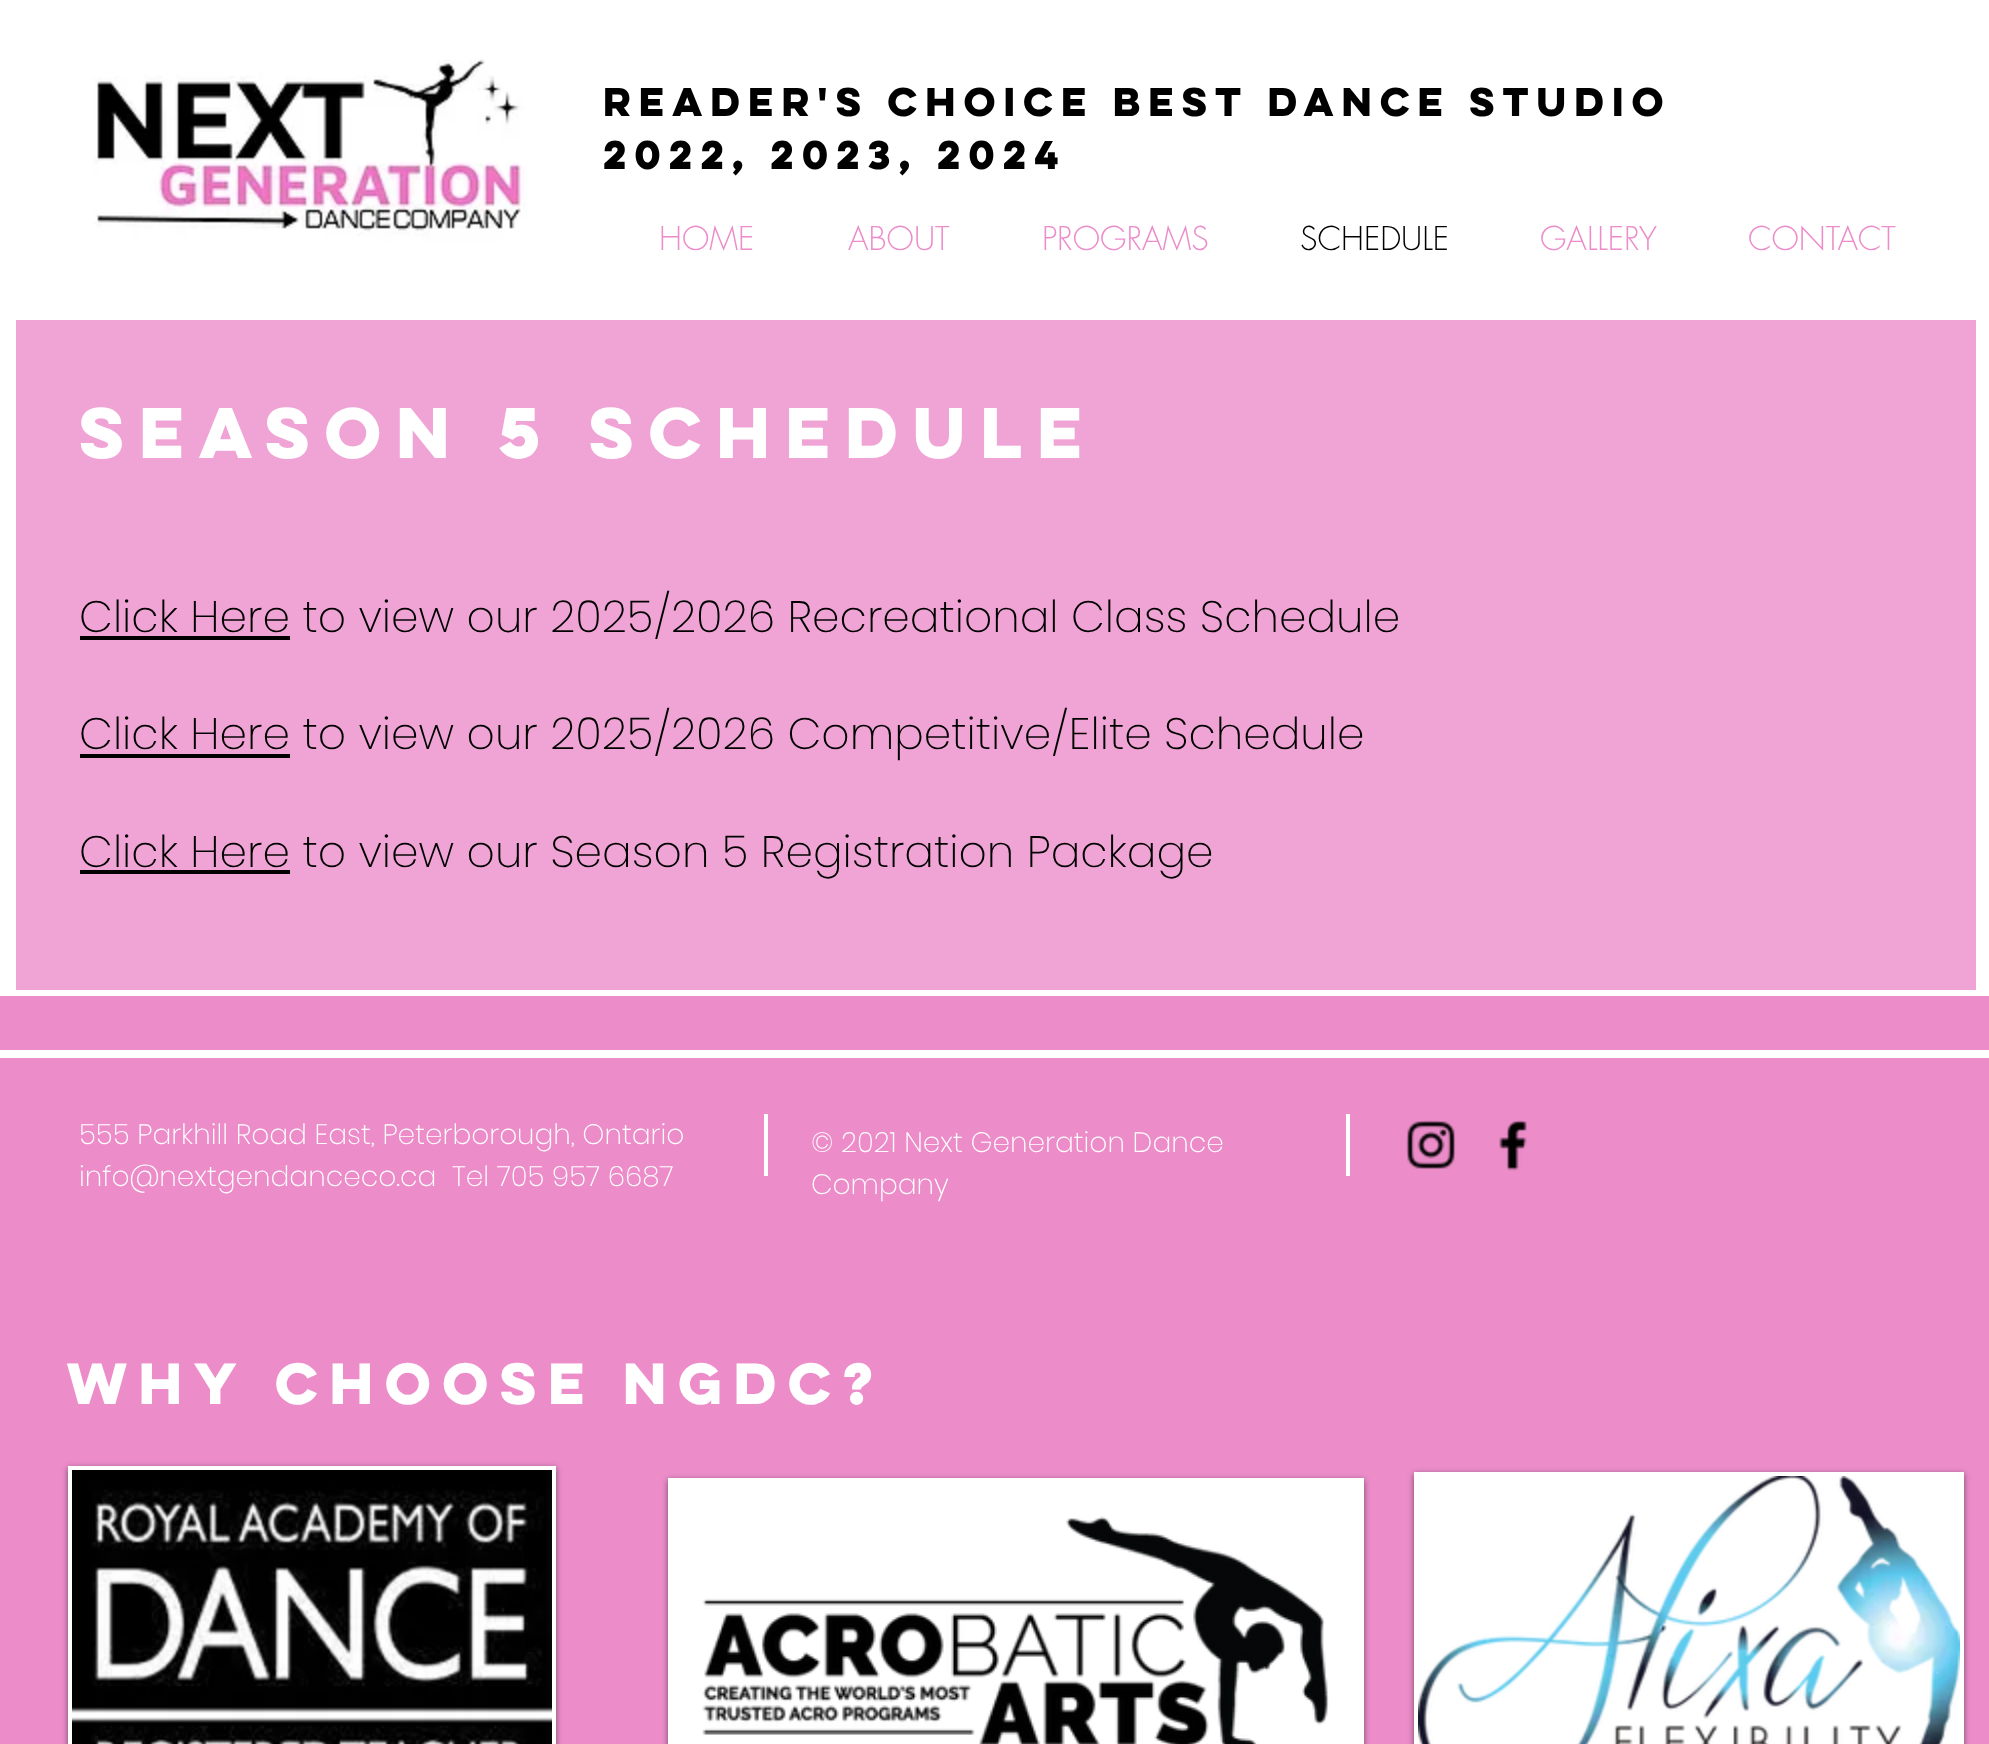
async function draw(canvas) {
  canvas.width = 1989;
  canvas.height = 1744;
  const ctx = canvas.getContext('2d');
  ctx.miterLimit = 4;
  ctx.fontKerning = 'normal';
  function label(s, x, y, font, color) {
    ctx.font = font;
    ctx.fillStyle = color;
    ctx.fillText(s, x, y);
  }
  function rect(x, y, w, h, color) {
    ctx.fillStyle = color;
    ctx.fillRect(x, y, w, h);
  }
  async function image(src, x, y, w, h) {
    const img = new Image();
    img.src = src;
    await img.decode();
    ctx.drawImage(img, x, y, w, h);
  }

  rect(0, 0, 1989, 1744, '#fff');
  await image('assets/img1.png', 46, 20, 558, 222);
  label('Reader\'s Choice Best Dance Studio', 603, 116, 'bold 36px "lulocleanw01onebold"', '#000');
  label('2022, 2023, 2024', 603, 169, 'bold 36px "lulocleanw01onebold"', '#000');
  label('HOME', 659, 250, '300 32px futura', '#ec8dca');
  label('ABOUT', 848, 250, '300 32px futura', '#ec8dca');
  label('PROGRAMS', 1042, 250, '300 32px futura', '#ec8dca');
  label('SCHEDULE', 1300, 250, '300 32px futura', '#000');
  label('GALLERY', 1540, 250, '300 32px futura', '#ec8dca');
  label('CONTACT', 1748, 250, '300 32px futura', '#ec8dca');
  rect(16, 320, 1960, 670, '#f0a4d5');
  ctx.letterSpacing = '0.6px';
  label('Season 5 Schedule', 79, 458, 'bold 64px "lulocleanw01onebold"', '#fff');
  rect(80, 636, 210, 4, '#000');
  ctx.letterSpacing = '0px';
  label('Click Here to view our 2025/2026 Recreational Class Schedule', 79, 632, '200 44px Poppins', '#000');
  rect(80, 754, 210, 4, '#000');
  label('Click Here to view our 2025/2026 Competitive/Elite Schedule', 79, 749, '200 44px Poppins', '#000');
  rect(80, 870, 210, 4, '#000');
  label('Click Here to view our Season 5 Registration Package', 79, 867, '200 44px Poppins', '#000');
  rect(0, 996, 1989, 748, '#ec8dca');
  rect(0, 1050, 1989, 8, '#fff');
  label('555 Parkhill Road East, Peterborough, Ontario', 79, 1144, '200 28px "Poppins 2"', '#fff');
  label('info@nextgendanceco.ca', 79, 1186, '200 28px "Poppins 2"', '#fff');
  label('Tel 705 957 6687', 452, 1186, '200 28px "Poppins 2"', '#fff');
  rect(764, 1114, 4, 62, '#fff');
  label('© 2021 Next Generation Dance', 811, 1152, '200 28px "Poppins 2"', '#fff');
  label('Company', 811, 1194, '200 28px "Poppins 2"', '#fff');
  rect(1346, 1114, 4, 62, '#fff');
  await image('assets/img2.png', 1406, 1120, 50, 50);
  await image('assets/img3.png', 1499, 1120, 28, 51);
  label('Why Choose NGDC?', 67, 1404, 'bold 52px "lulocleanw01onebold"', '#fff');
  ctx.fillStyle = '#00000080';
  ctx.filter = 'blur(3px)';
  ctx.beginPath();
  ctx.rect(68, 1468, 488, 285);
  ctx.fill();
  ctx.filter = 'none';
  rect(68, 1466, 488, 278, '#fff');
  await image('assets/img4.png', 72, 1470, 480, 274);
  ctx.fillStyle = '#00000080';
  ctx.filter = 'blur(3px)';
  ctx.beginPath();
  ctx.rect(668, 1480, 696, 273);
  ctx.fill();
  ctx.filter = 'none';
  rect(668, 1478, 696, 266, '#fff');
  await image('assets/img5.png', 702, 1516, 627, 228);
  ctx.fillStyle = '#00000080';
  ctx.filter = 'blur(3px)';
  ctx.beginPath();
  ctx.rect(1414, 1474, 550, 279);
  ctx.fill();
  ctx.filter = 'none';
  rect(1414, 1472, 550, 272, '#fff');
  await image('assets/img6.png', 1418, 1476, 542, 268);
}

draw(document.querySelector('canvas'));
